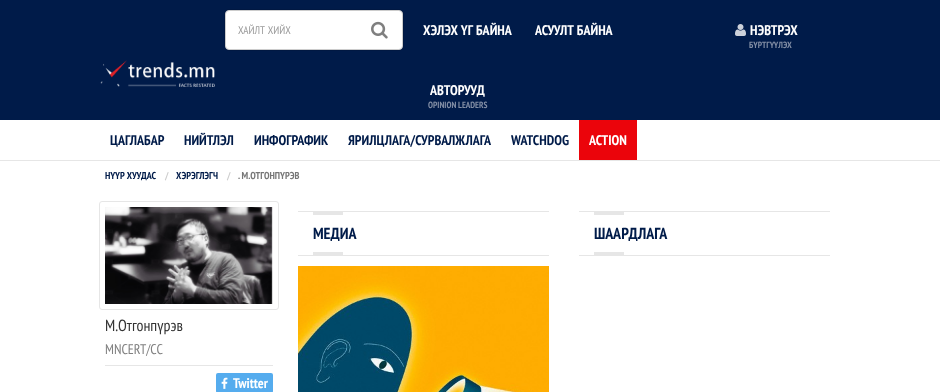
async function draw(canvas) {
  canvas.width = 940;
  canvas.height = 392;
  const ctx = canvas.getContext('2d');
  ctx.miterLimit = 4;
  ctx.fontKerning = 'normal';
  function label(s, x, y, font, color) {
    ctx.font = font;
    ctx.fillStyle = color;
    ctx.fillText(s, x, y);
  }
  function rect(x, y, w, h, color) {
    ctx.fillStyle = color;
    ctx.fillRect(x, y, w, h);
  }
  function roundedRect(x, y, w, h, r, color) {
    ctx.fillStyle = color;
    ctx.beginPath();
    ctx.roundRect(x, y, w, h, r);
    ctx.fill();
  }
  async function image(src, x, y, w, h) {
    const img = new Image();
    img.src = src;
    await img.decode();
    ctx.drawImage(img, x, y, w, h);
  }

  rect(0, 0, 940, 392, '#fff');
  rect(0, 0, 940, 120, '#001b49');
  ctx.beginPath();
  ctx.roundRect(224.5, 9.5, 179, 41, 4.5);
  ctx.strokeStyle = '#001842';
  ctx.stroke();
  ctx.fillStyle = '#fff';
  ctx.beginPath();
  ctx.roundRect(225.5, 10.5, 177, 39, 3.5);
  ctx.fill();
  ctx.strokeStyle = '#ccc';
  ctx.stroke();
  ctx.wordSpacing = '1px';
  label('ХАЙЛТ ХИЙХ', 238, 34, '11px PT Sans Narrow', '#999');
  await image('assets/img1.png', 371, 21, 17, 18);
  ctx.wordSpacing = '0px';
  label('ХЭЛЭХ ҮГ БАЙНА', 423, 35, 'bold 14px PT Sans Narrow', '#fff');
  label('АСУУЛТ БАЙНА', 535, 35, 'bold 14px PT Sans Narrow', '#fff');
  label('АВТОРУУД', 430, 95, 'bold 14px PT Sans Narrow', '#fff');
  label('OPINION LEADERS', 428, 108, 'bold 9px PT Sans Narrow', '#808da4');
  await image('assets/img2.png', 735, 24, 11, 12);
  label('НЭВТРЭХ', 750, 35, 'bold 14px PT Sans Narrow', '#fff');
  label('БҮРТГҮҮЛЭХ', 749, 48, 'bold 9px PT Sans Narrow', '#808da4');
  await image('assets/img3.png', 100, 60, 115, 27);
  rect(0, 160, 940, 1, '#e6e6e6');
  label('ЦАГЛАБАР', 110, 145, 'bold 14px PT Sans Narrow', '#001b49');
  label('НИЙТЛЭЛ', 184, 145, 'bold 14px PT Sans Narrow', '#001b49');
  label('ИНФОГРАФИК', 254, 145, 'bold 14px PT Sans Narrow', '#001b49');
  label('ЯРИЛЦЛАГА/СУРВАЛЖЛАГА', 348, 145, 'bold 14px PT Sans Narrow', '#001b49');
  label('WATCHDOG', 511, 145, 'bold 14px PT Sans Narrow', '#001b49');
  rect(579, 120, 58, 40, '#eb040b');
  label('ACTION', 589, 145, 'bold 14px PT Sans Narrow', '#fff');
  label('НҮҮР ХУУДАС', 105, 179, 'bold 10px PT Sans Narrow', '#001b49');
  label('/', 165, 179, 'bold 10px PT Sans Narrow', '#ccc');
  label('ХЭРЭГЛЭГЧ', 176, 179, 'bold 10px PT Sans Narrow', '#001b49');
  label('/', 227, 179, 'bold 10px PT Sans Narrow', '#ccc');
  label('. М.ОТГОНПҮРЭВ', 238, 179, 'bold 10px PT Sans Narrow', '#777');
  rect(298, 211, 251, 1, '#e6e6e6');
  rect(298, 255, 251, 1, '#e6e6e6');
  rect(313, 212, 30, 3, '#e6e6e6');
  label('МЕДИА', 313, 239, 'bold 16px PT Sans Narrow', '#001b49');
  rect(313, 252, 30, 3, '#e6e6e6');
  await image('assets/img4.png', 298, 266, 251, 126);
  rect(579, 211, 251, 1, '#e6e6e6');
  rect(579, 255, 251, 1, '#e6e6e6');
  rect(594, 212, 30, 3, '#e6e6e6');
  label('ШААРДЛАГА', 594, 239, 'bold 16px PT Sans Narrow', '#001b49');
  rect(594, 252, 30, 3, '#e6e6e6');
  ctx.beginPath();
  ctx.roundRect(99.5, 201.5, 179, 108, 2.5);
  ctx.strokeStyle = '#e6e6e6';
  ctx.stroke();
  await image('assets/img5.png', 105, 207, 168, 97);
  label('М.Отгонпүрэв', 105, 331, '16px PT Sans Narrow', '#333');
  label('MNCERT/CC', 105, 354, '14px PT Sans Narrow', '#808080');
  rect(105, 365, 168, 1, '#e6e6e6');
  roundedRect(216, 373, 57, 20, 2, '#55acee');
  await image('assets/img6.png', 221, 377, 7, 12);
  label('Twitter', 233, 388, 'bold 14px PT Sans Narrow', '#fff');
}

draw(document.querySelector('canvas'));
